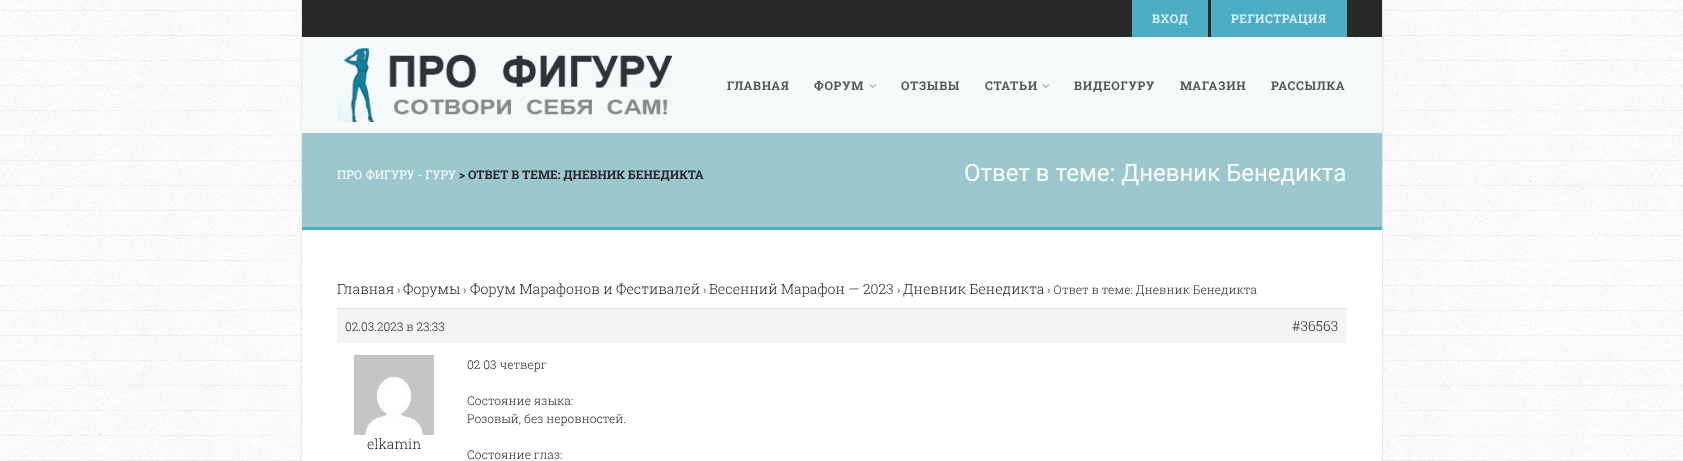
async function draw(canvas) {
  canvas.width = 1683;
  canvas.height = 461;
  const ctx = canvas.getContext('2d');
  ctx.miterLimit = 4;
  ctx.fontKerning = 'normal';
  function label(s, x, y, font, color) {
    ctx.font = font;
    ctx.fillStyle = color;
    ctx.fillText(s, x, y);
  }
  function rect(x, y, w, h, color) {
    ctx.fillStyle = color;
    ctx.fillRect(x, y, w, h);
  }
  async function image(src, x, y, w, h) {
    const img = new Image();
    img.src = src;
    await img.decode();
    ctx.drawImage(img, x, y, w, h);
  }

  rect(0, 0, 1683, 461, '#fff');
  await image('assets/img1.png', 0, 0, 1683, 461);
  ctx.fillStyle = '#00000033';
  ctx.filter = 'blur(1px)';
  ctx.beginPath();
  ctx.rect(302, 0, 1080, 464);
  ctx.fill();
  ctx.filter = 'none';
  rect(302, 230, 1080, 231, '#fff');
  rect(302, 0, 1080, 37, '#292929');
  rect(1132, 0, 76, 37, '#4cadc5');
  ctx.letterSpacing = '0.5px';
  label('ВХОД', 1152, 23, 'bold 12px Roboto Slab', '#dbeff3');
  rect(1211, 0, 136, 37, '#4cadc5');
  label('РЕГИСТРАЦИЯ', 1231, 23, 'bold 12px Roboto Slab', '#dbeff3');
  rect(302, 37, 1080, 96, '#f5fafa');
  await image('assets/img2.png', 337, 48, 336, 74);
  ctx.letterSpacing = '0.75px';
  label('ГЛАВНАЯ', 727, 90, 'bold 12px Roboto Slab', '#555');
  label('ФОРУМ', 814, 90, 'bold 12px Roboto Slab', '#555');
  await image('assets/img3.png', 869, 84, 8, 4);
  label('ОТЗЫВЫ', 901, 90, 'bold 12px Roboto Slab', '#555');
  label('СТАТЬИ', 985, 90, 'bold 12px Roboto Slab', '#555');
  await image('assets/img3.png', 1042, 84, 8, 4);
  label('ВИДЕОГУРУ', 1074, 90, 'bold 12px Roboto Slab', '#555');
  label('МАГАЗИН', 1180, 90, 'bold 12px Roboto Slab', '#555');
  label('РАССЫЛКА', 1271, 90, 'bold 12px Roboto Slab', '#555');
  rect(302, 133, 1080, 94, '#9bc8ce');
  rect(302, 227, 1080, 3, '#4cadc5');
  ctx.letterSpacing = '0px';
  label('ПРО ФИГУРУ - ГУРУ', 337, 179, '12px Roboto Slab', '#fff');
  label('> ОТВЕТ В ТЕМЕ: ДНЕВНИК БЕНЕДИКТА', 459, 179, 'bold 12px Roboto Slab', '#262626');
  label('Ответ в теме: Дневник Бенедикта', 964, 181, '24px Roboto', '#fff');
  label('Главная', 337, 294, '300 14px Roboto Slab', '#1e1e1e');
  label('›', 397, 294, '300 12px Roboto Slab', '#262626');
  label('Форумы', 403, 294, '300 14px Roboto Slab', '#1e1e1e');
  label('›', 463, 294, '300 12px Roboto Slab', '#262626');
  label('Форум Марафонов и Фестивалей', 470, 294, '300 14px Roboto Slab', '#1e1e1e');
  label('›', 703, 294, '300 12px Roboto Slab', '#262626');
  label('Весенний Марафон — 2023', 709, 294, '300 14px Roboto Slab', '#1e1e1e');
  label('›', 897, 294, '300 12px Roboto Slab', '#262626');
  label('Дневник Бенедикта', 903, 294, '300 14px Roboto Slab', '#1e1e1e');
  label('› Ответ в теме: Дневник Бенедикта', 1047, 294, '300 12px Roboto Slab', '#262626');
  rect(337, 309, 1010, 34, '#f4f4f4');
  rect(337, 308, 1010, 1, '#ddd');
  label('02.03.2023 в 23:33', 345, 331, '300 12px Roboto Slab', '#262626');
  label('#36563', 1292, 331, '300 14px Roboto Slab', '#1e1e1e');
  await image('assets/img4.png', 354, 355, 80, 80);
  label('elkamin', 367, 449, '300 14px Roboto Slab', '#1e1e1e');
  label('02 03 четверг', 467, 369, '300 12px Roboto Slab', '#262626');
  label('Состояние языка:', 467, 405, '300 12px Roboto Slab', '#262626');
  label('Розовый, без неровностей.', 467, 423, '300 12px Roboto Slab', '#262626');
  label('Состояние глаз:', 467, 459, '300 12px Roboto Slab', '#262626');
}

draw(document.querySelector('canvas'));
